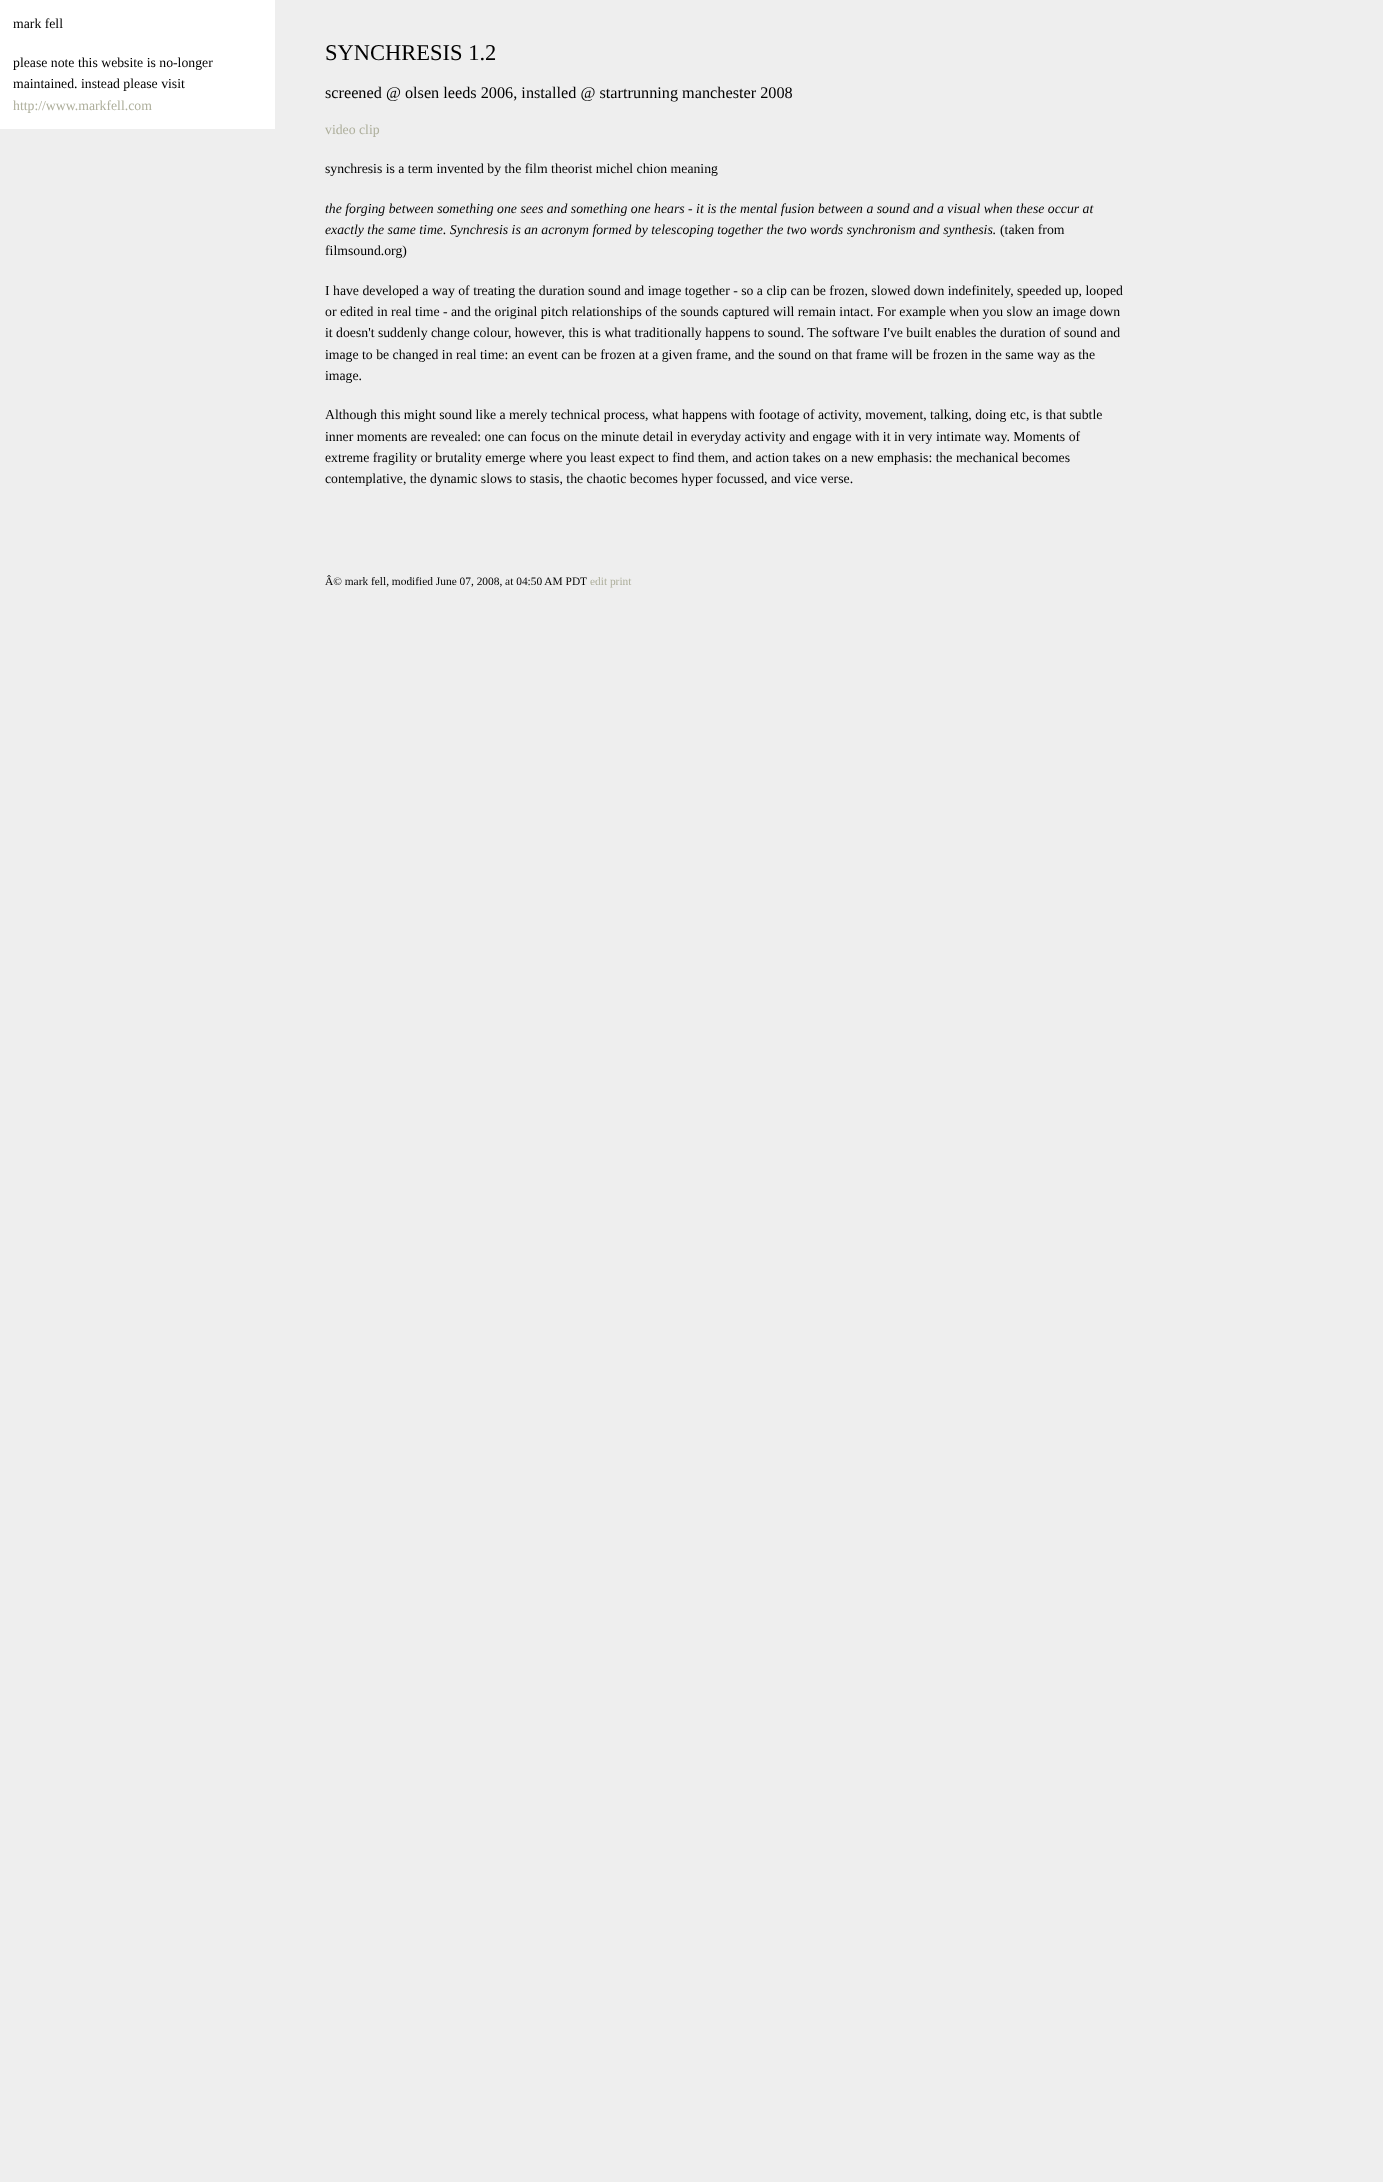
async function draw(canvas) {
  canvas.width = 1383;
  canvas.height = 2182;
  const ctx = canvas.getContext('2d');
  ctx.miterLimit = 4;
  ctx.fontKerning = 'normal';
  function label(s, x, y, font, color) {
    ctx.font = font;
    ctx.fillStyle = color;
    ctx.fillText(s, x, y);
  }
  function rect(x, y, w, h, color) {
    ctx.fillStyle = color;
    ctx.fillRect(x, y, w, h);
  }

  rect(0, 0, 1383, 2182, '#eee');
  rect(0, 0, 275, 129, '#fff');
  label('mark fell', 13, 28, '13.75px Liberation Serif', '#000');
  label('please note this website is no-longer', 13, 67, '13.75px Liberation Serif', '#000');
  label('maintained. instead please visit', 13, 88, '13.75px Liberation Serif', '#000');
  label('http://www.markfell.com', 13, 110, '13.75px Liberation Serif', '#aeaf9c');
  label('SYNCHRESIS 1.2', 325, 60, '22.5px Liberation Serif', '#000');
  label('screened @ olsen leeds 2006, installed @ startrunning manchester 2008', 325, 98, '16.25px Liberation Serif', '#000');
  label('video clip', 325, 134, '13.75px Liberation Serif', '#aeaf9c');
  label('synchresis is a term invented by the film theorist michel chion meaning', 325, 173, '13.75px Liberation Serif', '#000');
  label('the forging between something one sees and something one hears - it is the mental fusion between a sound and a visual when these occur at', 325, 213, 'italic 13.75px Liberation Serif', '#000');
  label('exactly the same time. Synchresis is an acronym formed by telescoping together the two words synchronism and synthesis.', 325, 234, 'italic 13.75px Liberation Serif', '#000');
  label('(taken from', 1000, 234, '13.75px Liberation Serif', '#000');
  label('filmsound.org)', 325, 255, '13.75px Liberation Serif', '#000');
  label('I have developed a way of treating the duration sound and image together - so a clip can be frozen, slowed down indefinitely, speeded up, looped', 325, 295, '13.75px Liberation Serif', '#000');
  label('or edited in real time - and the original pitch relationships of the sounds captured will remain intact. For example when you slow an image down', 325, 316, '13.75px Liberation Serif', '#000');
  label('it doesn\'t suddenly change colour, however, this is what traditionally happens to sound. The software I\'ve built enables the duration of sound and', 325, 337, '13.75px Liberation Serif', '#000');
  label('image to be changed in real time: an event can be frozen at a given frame, and the sound on that frame will be frozen in the same way as the', 325, 359, '13.75px Liberation Serif', '#000');
  label('image.', 325, 380, '13.75px Liberation Serif', '#000');
  label('Although this might sound like a merely technical process, what happens with footage of activity, movement, talking, doing etc, is that subtle', 325, 419, '13.75px Liberation Serif', '#000');
  label('inner moments are revealed: one can focus on the minute detail in everyday activity and engage with it in very intimate way. Moments of', 325, 441, '13.75px Liberation Serif', '#000');
  label('extreme fragility or brutality emerge where you least expect to find them, and action takes on a new emphasis: the mechanical becomes', 325, 462, '13.75px Liberation Serif', '#000');
  label('contemplative, the dynamic slows to stasis, the chaotic becomes hyper focussed, and vice verse.', 325, 483, '13.75px Liberation Serif', '#000');
  label('Â© mark fell, modified June 07, 2008, at 04:50 AM PDT', 325, 585, '11.4px Liberation Serif', '#000');
  label('edit print', 590, 585, '11.4px Liberation Serif', '#aeaf9c');
}

draw(document.querySelector('canvas'));
